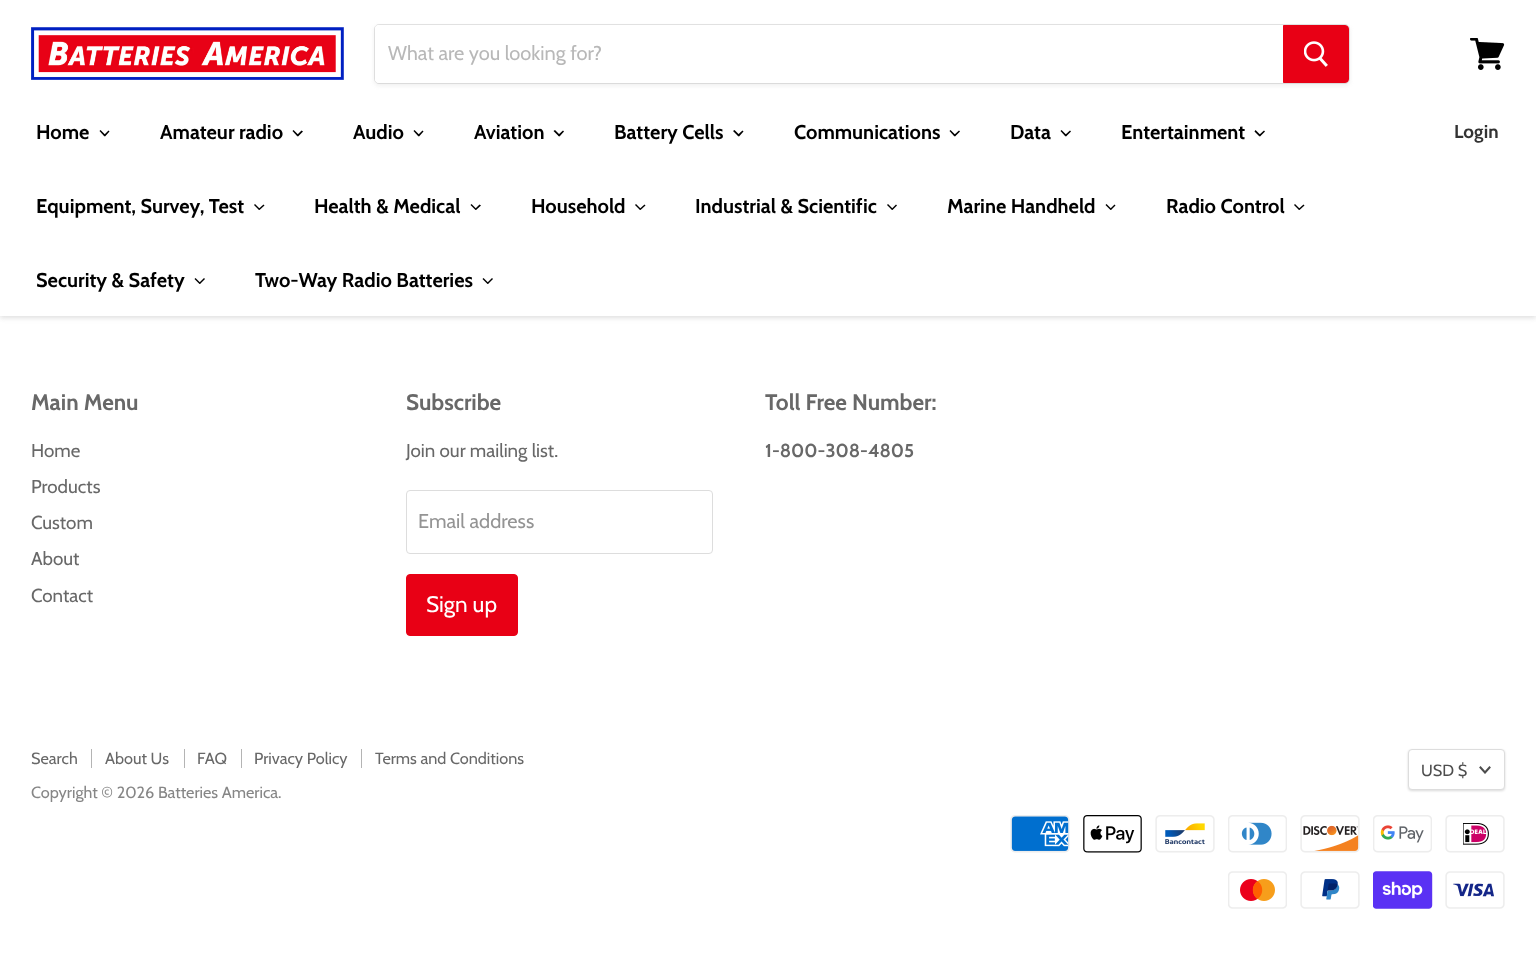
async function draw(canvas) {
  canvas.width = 1536;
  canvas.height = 976;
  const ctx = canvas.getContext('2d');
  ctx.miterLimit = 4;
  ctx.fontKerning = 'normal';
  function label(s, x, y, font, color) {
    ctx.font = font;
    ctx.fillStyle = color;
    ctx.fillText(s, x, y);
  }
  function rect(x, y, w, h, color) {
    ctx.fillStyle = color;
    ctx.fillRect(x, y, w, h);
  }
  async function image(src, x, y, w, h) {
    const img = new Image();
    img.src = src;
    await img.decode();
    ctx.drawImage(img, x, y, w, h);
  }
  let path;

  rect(0, 0, 1536, 976, '#fff');
  ctx.fillStyle = '#7f7f7f40';
  ctx.filter = 'blur(2.5px)';
  ctx.beginPath();
  ctx.rect(0, 1, 1536, 317);
  ctx.fill();
  ctx.filter = 'none';
  rect(0, 0, 1536, 316, '#fff');
  await image('assets/img1.png', 31, 27, 313, 53);
  ctx.fillStyle = '#7f7f7f1c';
  ctx.filter = 'blur(2px)';
  ctx.beginPath();
  ctx.roundRect(374, 26, 976, 60, 5);
  ctx.fill();
  ctx.filter = 'none';
  ctx.beginPath();
  ctx.roundRect(374.5, 24.5, 975, 59, 4.5);
  ctx.strokeStyle = '#7f7f7f33';
  ctx.stroke();
  ctx.fillStyle = '#fff';
  ctx.beginPath();
  ctx.roundRect(375, 25, 908, 58, [4, 0, 0, 4]);
  ctx.fill();
  label('What are you looking for?', 388, 60, '20px Cabin', '#b8b8b8');
  ctx.fillStyle = '#e80015';
  ctx.beginPath();
  ctx.roundRect(1283.5, 25.5, 65, 57, [0, 3.5, 3.5, 0]);
  ctx.fill();
  ctx.strokeStyle = '#e80015';
  ctx.stroke();
  await image('assets/img2.png', 1304, 41, 24, 26);
  await image('assets/img3.png', 1470, 38, 35, 32);
  label('Home', 36, 139, 'bold 20px Cabin', '#000');
  path = new Path2D('M108.5 130.5L109.5 131.5L105 136.5L104 135Z');
  ctx.fill(path);
  path = new Path2D('M100.5 130L105.5 135L104.5 136.5L99.5 131Z');
  ctx.fill(path);
  label('Amateur radio', 160, 139, 'bold 20px Cabin', '#000');
  path = new Path2D('M301.5 130.5L303 131.5L298 136.5L297 135Z');
  ctx.fill(path);
  path = new Path2D('M293.5 130L298.5 135L297.5 136.5L292.5 131Z');
  ctx.fill(path);
  label('Audio', 353, 139, 'bold 20px Cabin', '#000');
  path = new Path2D('M422.5 130.5L423.5 131.5L419 136.5L418 135Z');
  ctx.fill(path);
  path = new Path2D('M414.5 130L419.5 135L418.5 136.5L413.5 131Z');
  ctx.fill(path);
  label('Aviation', 474, 139, 'bold 20px Cabin', '#000');
  path = new Path2D('M563 130.5L564 131.5L559.5 136.5L558 135Z');
  ctx.fill(path);
  path = new Path2D('M555 130L560 135L559 136.5L553.5 131Z');
  ctx.fill(path);
  label('Battery Cells', 614, 139, 'bold 20px Cabin', '#000');
  path = new Path2D('M742.5 130.5L743.5 131.5L739 136.5L737.5 135Z');
  ctx.fill(path);
  path = new Path2D('M734.5 130L739.5 135L738.5 136.5L733 131Z');
  ctx.fill(path);
  label('Communications', 794, 139, 'bold 20px Cabin', '#000');
  path = new Path2D('M959 130.5L960 131.5L955 136.5L954 135Z');
  ctx.fill(path);
  path = new Path2D('M950.5 130L955.5 135L954.5 136.5L949.5 131Z');
  ctx.fill(path);
  label('Data', 1010, 139, 'bold 20px Cabin', '#000');
  path = new Path2D('M1070 130.5L1071 131.5L1066 136.5L1065 135Z');
  ctx.fill(path);
  path = new Path2D('M1061.5 130L1066.5 135L1065.5 136.5L1060.5 131Z');
  ctx.fill(path);
  label('Entertainment', 1121, 139, 'bold 20px Cabin', '#000');
  path = new Path2D('M1264 130.5L1265 131.5L1260 136.5L1259 135Z');
  ctx.fill(path);
  path = new Path2D('M1255.5 130L1260.5 135L1259.5 136.5L1254.5 131.5Z');
  ctx.fill(path);
  label('Equipment, Survey, Test', 36, 213, 'bold 20px Cabin', '#000');
  path = new Path2D('M263.5 204.5L264.5 205.5L259.5 210L258.5 209Z');
  ctx.fill(path);
  path = new Path2D('M255 204L260 209L259 210L254 205Z');
  ctx.fill(path);
  label('Health & Medical', 314, 213, 'bold 20px Cabin', '#000');
  path = new Path2D('M479.5 204.5L481 205.5L476 210L475 209Z');
  ctx.fill(path);
  path = new Path2D('M471.5 204L476.5 209L475.5 210L470.5 205Z');
  ctx.fill(path);
  label('Household', 531, 213, 'bold 20px Cabin', '#000');
  path = new Path2D('M644.5 204.5L645.5 205.5L640.5 210L639.5 209Z');
  ctx.fill(path);
  path = new Path2D('M636 204L641 209L640 210L635 205Z');
  ctx.fill(path);
  label('Industrial & Scientific', 695, 213, 'bold 20px Cabin', '#000');
  path = new Path2D('M896 204.5L897 205.5L892.5 210L891.5 209Z');
  ctx.fill(path);
  path = new Path2D('M888 204L893 209L892 210L887 205Z');
  ctx.fill(path);
  label('Marine Handheld', 947, 213, 'bold 20px Cabin', '#000');
  path = new Path2D('M1114.5 204.5L1115.5 205.5L1111 210L1110 209Z');
  ctx.fill(path);
  path = new Path2D('M1106.5 204L1111.5 209L1110.5 210L1105.5 205Z');
  ctx.fill(path);
  label('Radio Control', 1166, 213, 'bold 20px Cabin', '#000');
  path = new Path2D('M1303.5 204.5L1304.5 205.5L1299.5 210L1298.5 209Z');
  ctx.fill(path);
  path = new Path2D('M1295 204L1300 209L1299 210L1294 205Z');
  ctx.fill(path);
  label('Security & Safety', 36, 287, 'bold 20px Cabin', '#000');
  path = new Path2D('M204 278L205 279L200 284L199 283Z');
  ctx.fill(path);
  path = new Path2D('M195.5 278L200.5 283L199.5 284L194.5 279Z');
  ctx.fill(path);
  label('Two-Way Radio Batteries', 255, 287, 'bold 20px Cabin', '#000');
  path = new Path2D('M492 278L493 279L488 284L487 283Z');
  ctx.fill(path);
  path = new Path2D('M483.5 278L488.5 283L487.5 284L482.5 279Z');
  ctx.fill(path);
  label('Login', 1454, 138, 'bold 18.75px Cabin', '#333');
  label('Main Menu', 31, 410, 'bold 22.5px Cabin', '#686868');
  label('Home', 31, 457, '18.75px Cabin', '#686868');
  label('Products', 31, 493, '18.75px Cabin', '#686868');
  label('Custom', 31, 529, '18.75px Cabin', '#686868');
  label('About', 31, 565, '18.75px Cabin', '#686868');
  label('Contact', 31, 602, '18.75px Cabin', '#686868');
  label('Subscribe', 406, 410, 'bold 22.5px Cabin', '#686868');
  label('Join our mailing list.', 406, 457, '18.75px Cabin', '#686868');
  ctx.beginPath();
  ctx.roundRect(406.5, 490.5, 306, 63, 3.5);
  ctx.strokeStyle = '#ddd';
  ctx.stroke();
  label('Email address', 418, 528, '20px Cabin', '#949494');
  ctx.fillStyle = '#e80015';
  ctx.beginPath();
  ctx.roundRect(406.5, 574.5, 111, 61, 3.5);
  ctx.fill();
  ctx.strokeStyle = '#e80015';
  ctx.stroke();
  label('Sign up', 426, 612, '22.5px Cabin', '#fff');
  label('Toll Free Number:', 765, 410, 'bold 22.5px Cabin', '#686868');
  label('1-800-308-4805', 765, 457, 'bold 18.75px Cabin', '#686868');
  rect(91, 749, 1, 19, '#b4b4b4');
  label('Search', 31, 764, '16.25px Cabin', '#686868');
  rect(184, 749, 1, 19, '#b4b4b4');
  label('About Us', 105, 764, '16.25px Cabin', '#686868');
  rect(241, 749, 1, 19, '#b4b4b4');
  label('FAQ', 197, 764, '16.25px Cabin', '#686868');
  rect(361, 749, 1, 19, '#b4b4b4');
  label('Privacy Policy', 254, 764, '16.25px Cabin', '#686868');
  label('Terms and Conditions', 375, 764, '16.25px Cabin', '#686868');
  label('Copyright © 2026 Batteries America.', 31, 798, '16.25px Cabin', '#868686');
  ctx.fillStyle = '#00000026';
  ctx.filter = 'blur(1px)';
  ctx.beginPath();
  ctx.roundRect(1408, 750, 97, 41, 4);
  ctx.fill();
  ctx.filter = 'none';
  ctx.fillStyle = '#fff';
  ctx.beginPath();
  ctx.roundRect(1408.5, 749.5, 96, 40, 3.5);
  ctx.fill();
  ctx.strokeStyle = '#ddd';
  ctx.stroke();
  label('USD $', 1421, 776, '16.25px Cabin', '#4d4d4d');
  path = new Path2D('M1485 772.5L1489.5 767.5M1485 772.5L1480.5 767.5');
  ctx.strokeStyle = '#4d4d4d';
  ctx.lineWidth = 2;
  ctx.lineCap = 'square';
  ctx.stroke(path);
  await image('assets/img4.png', 1010, 815, 60, 38);
  await image('assets/img5.png', 1083, 815, 59, 38);
  await image('assets/img6.png', 1155, 815, 60, 38);
  await image('assets/img7.png', 1228, 815, 59, 38);
  await image('assets/img8.png', 1300, 815, 60, 38);
  await image('assets/img9.png', 1373, 815, 59, 38);
  await image('assets/img10.png', 1445, 815, 60, 38);
  await image('assets/img11.png', 1228, 871, 59, 38);
  await image('assets/img12.png', 1300, 871, 60, 38);
  await image('assets/img13.png', 1373, 871, 60, 38);
  await image('assets/img14.png', 1445, 871, 60, 38);
}

draw(document.querySelector('canvas'));
